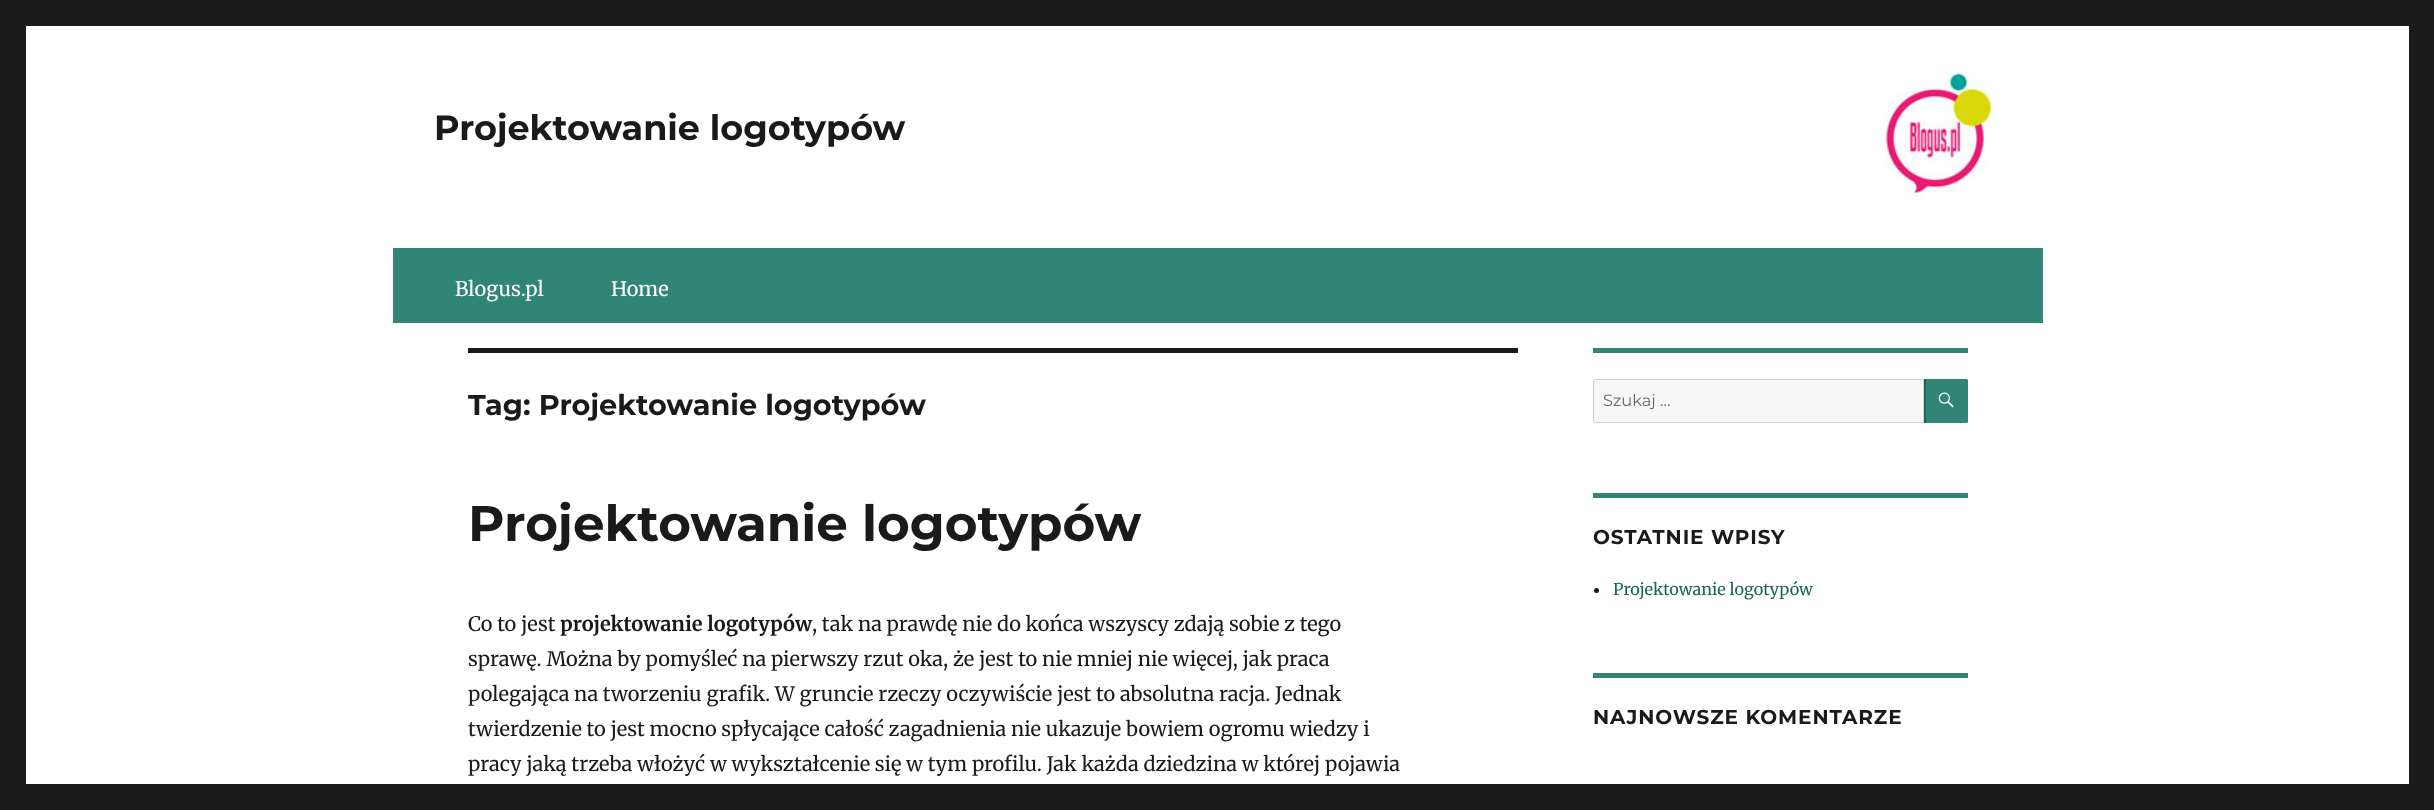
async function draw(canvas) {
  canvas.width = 2434;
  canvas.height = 810;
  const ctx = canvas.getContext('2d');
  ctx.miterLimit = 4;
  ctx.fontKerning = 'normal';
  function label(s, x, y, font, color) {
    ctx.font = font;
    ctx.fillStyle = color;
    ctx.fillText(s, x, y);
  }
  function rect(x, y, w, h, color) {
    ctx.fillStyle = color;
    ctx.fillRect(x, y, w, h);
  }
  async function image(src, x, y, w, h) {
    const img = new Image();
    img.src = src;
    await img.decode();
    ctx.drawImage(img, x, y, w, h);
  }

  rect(0, 0, 2434, 810, '#1a1a1a');
  rect(26, 26, 2383, 758, '#fff');
  label('Projektowanie logotypów', 434, 140, 'bold 35px Montserrat', '#1a1a1a');
  await image('assets/img1.png', 1885, 71, 110, 130);
  rect(393, 248, 1650, 75, '#308576');
  label('Blogus.pl', 455, 296, '20px Merriweather', '#fff');
  label('Home', 611, 296, '20px Merriweather', '#fff');
  rect(468, 348, 1050, 5, '#1a1a1a');
  label('Tag: Projektowanie logotypów', 468, 415, 'bold 28.75px Montserrat', '#1a1a1a');
  label('Projektowanie logotypów', 468, 541, 'bold 50px Montserrat', '#1a1a1a');
  label('Co to jest', 468, 631, '20px Merriweather', '#1a1a1a');
  label('projektowanie logotypów', 560, 631, 'bold 20px Merriweather', '#1a1a1a');
  label(', tak na prawdę nie do końca wszyscy zdają sobie z tego', 812, 631, '20px Merriweather', '#1a1a1a');
  label('sprawę. Można by pomyśleć na pierwszy rzut oka, że jest to nie mniej nie więcej, jak praca', 468, 666, '20px Merriweather', '#1a1a1a');
  label('polegająca na tworzeniu grafik. W gruncie rzeczy oczywiście jest to absolutna racja. Jednak', 468, 701, '20px Merriweather', '#1a1a1a');
  label('twierdzenie to jest mocno spłycające całość zagadnienia nie ukazuje bowiem ogromu wiedzy i', 468, 736, '20px Merriweather', '#1a1a1a');
  label('pracy jaką trzeba włożyć w wykształcenie się w tym profilu. Jak każda dziedzina w której pojawia', 468, 771, '20px Merriweather', '#1a1a1a');
  rect(1593, 348, 375, 5, '#308576');
  ctx.fillStyle = '#f7f7f7';
  ctx.beginPath();
  ctx.roundRect(1593.5, 379.5, 330, 43, [2, 0, 0, 2]);
  ctx.fill();
  ctx.strokeStyle = '#d1d1d1';
  ctx.stroke();
  label('Szukaj …', 1603, 406, '16.25px Montserrat', '#686868');
  ctx.fillStyle = '#1a6659';
  ctx.beginPath();
  ctx.roundRect(1924, 379, 44, 44, [0, 2.5, 2.5, 0]);
  ctx.fill();
  ctx.fillStyle = '#308576';
  ctx.beginPath();
  ctx.roundRect(1926, 379, 42, 44, [0, 2.5, 2.5, 0]);
  ctx.fill();
  await image('assets/img2.png', 1938, 392, 16, 16);
  rect(1593, 493, 375, 5, '#308576');
  ctx.letterSpacing = '0.9px';
  label('OSTATNIE WPISY', 1593, 544, 'bold 20px Montserrat', '#1a1a1a');
  ctx.beginPath();
  ctx.arc(1596.5, 590.5, 2.5, 0, 2 * Math.PI);
  ctx.fill();
  ctx.letterSpacing = '0px';
  label('Projektowanie logotypów', 1613, 595, '16.25px Merriweather', '#1a6659');
  rect(1593, 673, 375, 5, '#308576');
  ctx.letterSpacing = '0.9px';
  label('NAJNOWSZE KOMENTARZE', 1593, 724, 'bold 20px Montserrat', '#1a1a1a');
}

draw(document.querySelector('canvas'));
